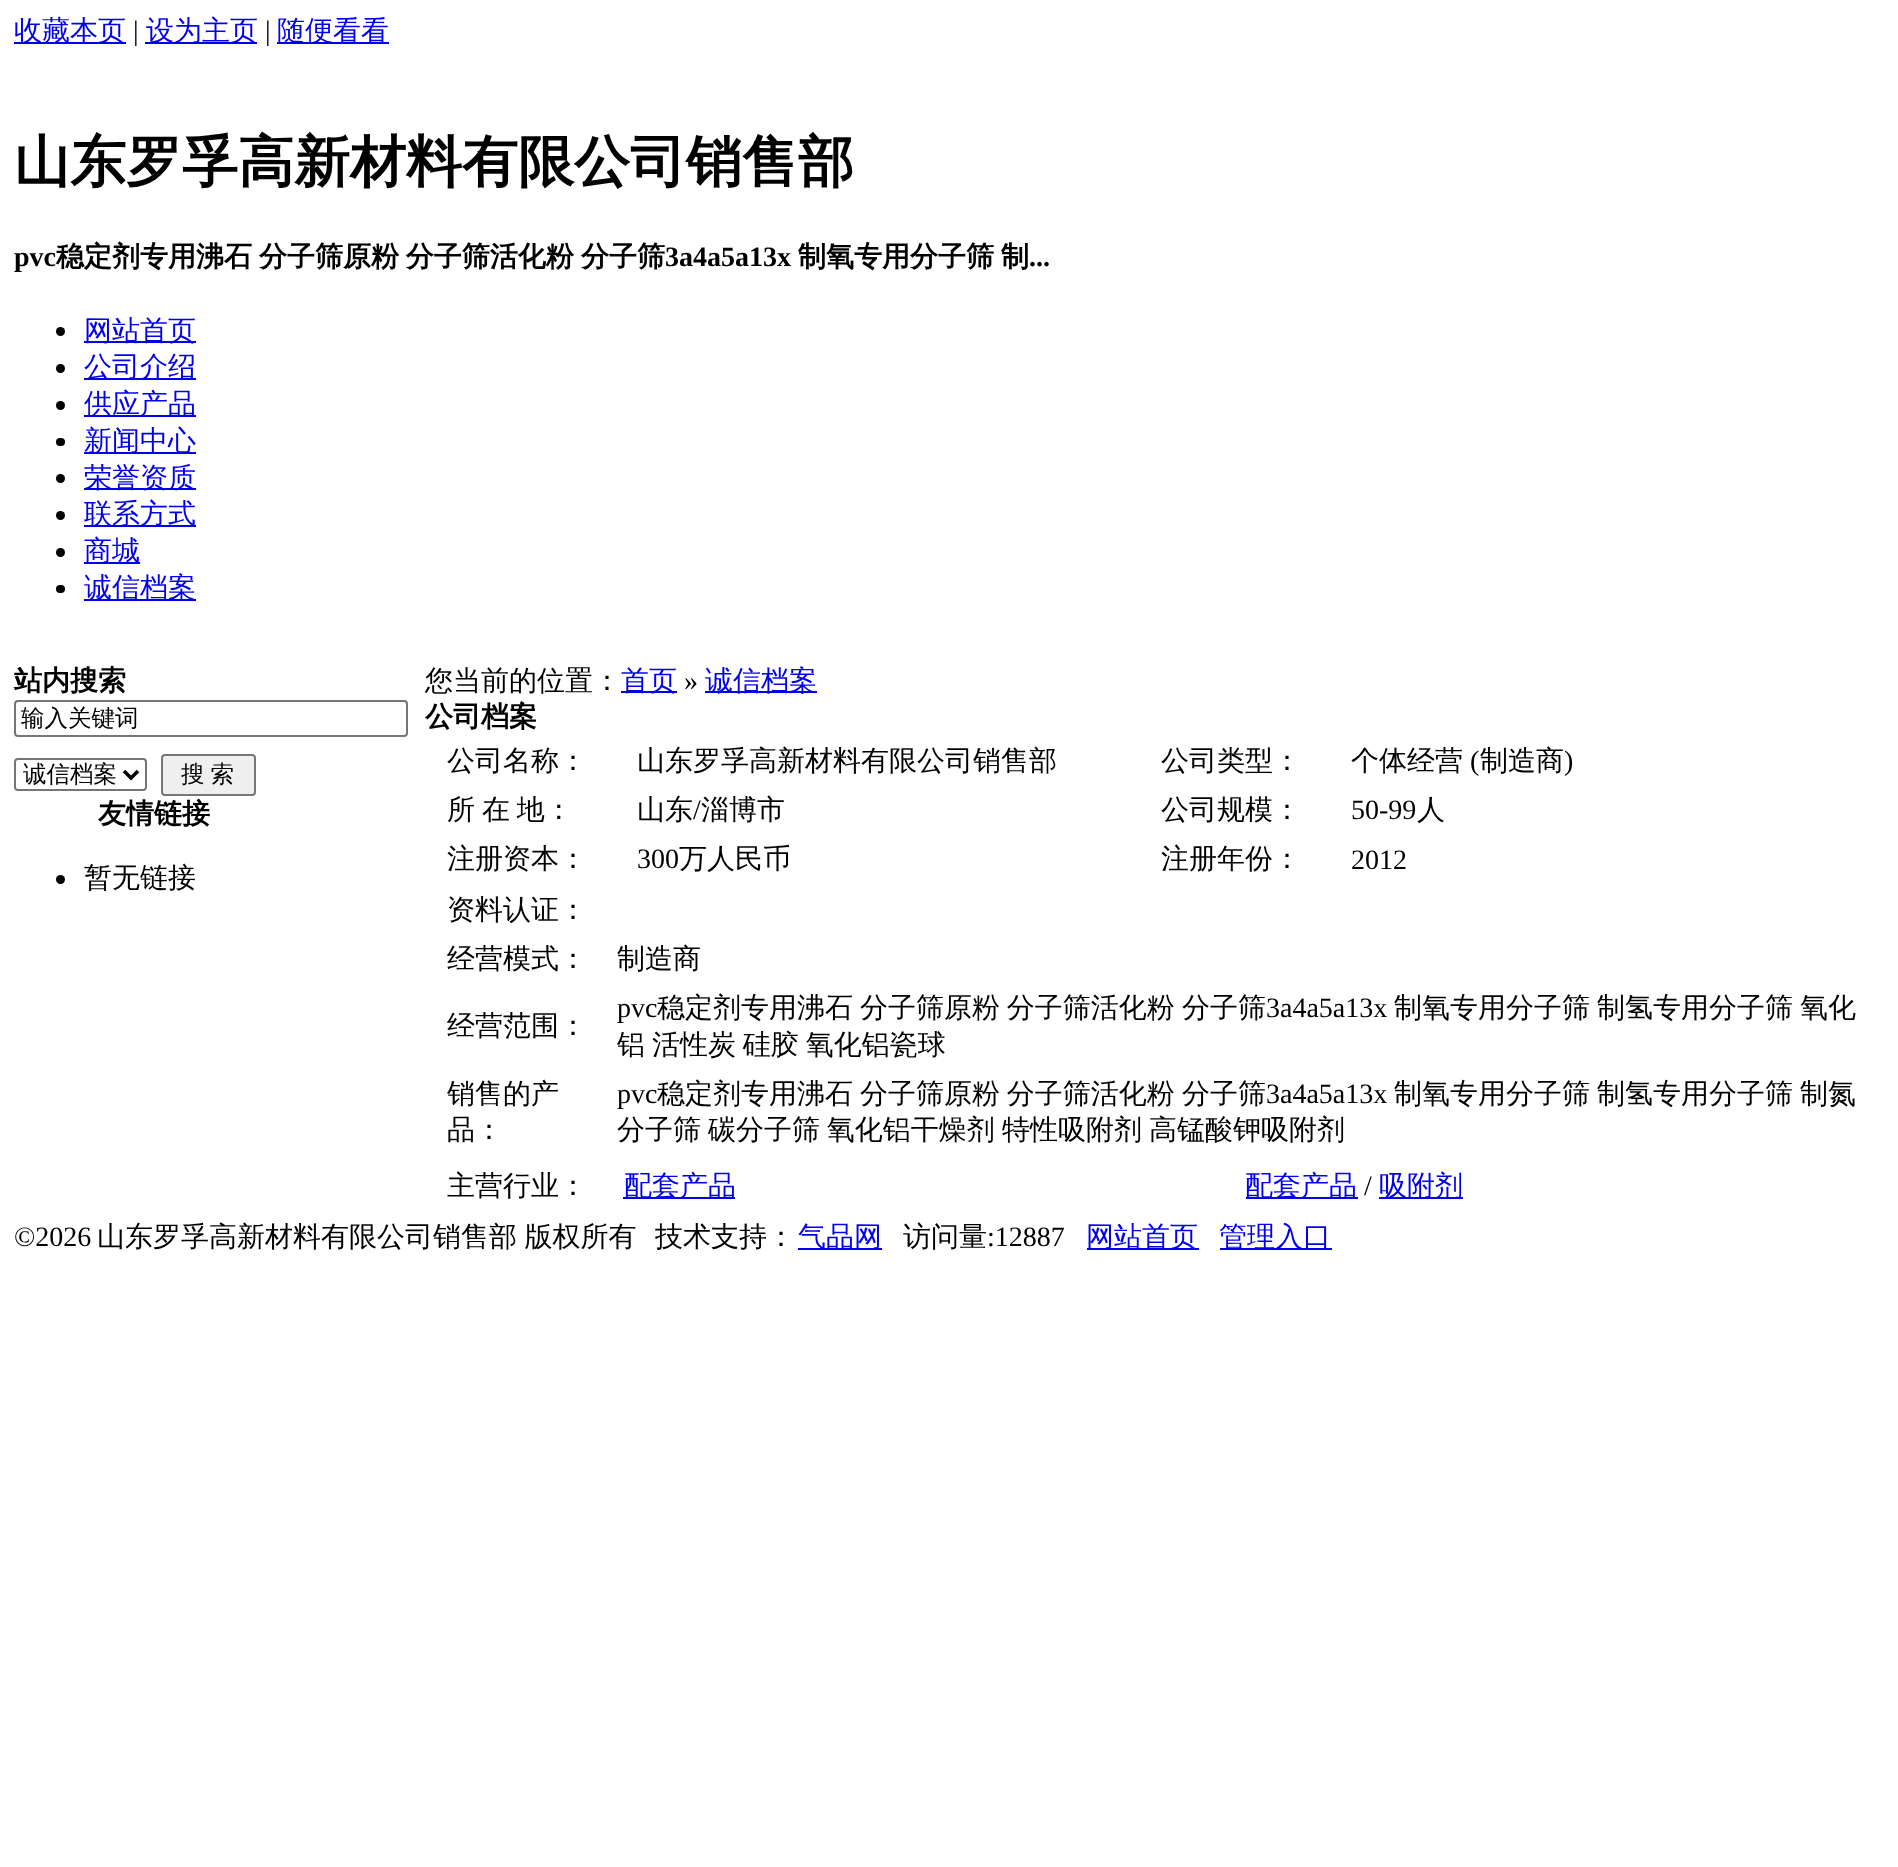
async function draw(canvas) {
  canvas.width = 1898;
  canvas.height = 1867;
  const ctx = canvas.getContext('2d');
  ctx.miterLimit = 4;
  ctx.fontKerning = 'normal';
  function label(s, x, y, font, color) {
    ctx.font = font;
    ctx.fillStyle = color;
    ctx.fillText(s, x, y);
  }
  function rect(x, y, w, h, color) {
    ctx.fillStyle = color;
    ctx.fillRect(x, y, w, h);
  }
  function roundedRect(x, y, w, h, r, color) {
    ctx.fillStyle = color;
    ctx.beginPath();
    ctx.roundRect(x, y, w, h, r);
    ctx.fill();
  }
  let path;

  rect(0, 0, 1898, 1867, '#fff');
  rect(14, 42, 112, 2, '#00e');
  label('收藏本页', 14, 40, '500 28px WenQuanYi Zen Hei', '#00e');
  label('|', 133, 40, '28px Liberation Serif', '#000');
  rect(145, 42, 112, 2, '#00e');
  label('设为主页', 146, 40, '500 28px WenQuanYi Zen Hei', '#00e');
  label('|', 265, 40, '28px Liberation Serif', '#000');
  rect(277, 42, 112, 2, '#00e');
  label('随便看看', 277, 40, '500 28px WenQuanYi Zen Hei', '#00e');
  label('山东罗孚高新材料有限公司销售部', 14, 181, 'bold 56px WenQuanYi Zen Hei', '#000');
  label('pvc', 14, 266, 'bold 28px Liberation Serif', '#000');
  ctx.wordSpacing = '-1.5px';
  label('稳定剂专用沸石 分子筛原粉 分子筛活化粉', 56, 266, 'bold 28px WenQuanYi Zen Hei', '#000');
  ctx.wordSpacing = '0px';
  label('分子筛', 581, 266, 'bold 28px WenQuanYi Zen Hei', '#000');
  label('3a4a5a13x', 665, 266, 'bold 28px Liberation Serif', '#000');
  ctx.wordSpacing = '-1.5px';
  label('制氧专用分子筛 制', 798, 266, 'bold 28px WenQuanYi Zen Hei', '#000');
  ctx.wordSpacing = '0px';
  label('...', 1029, 266, 'bold 28px Liberation Serif', '#000');
  ctx.beginPath();
  ctx.arc(60.5, 331.5, 4.5, 0, 2 * Math.PI);
  ctx.fill();
  rect(84, 341, 112, 2, '#00e');
  label('网站首页', 84, 340, '500 28px WenQuanYi Zen Hei', '#00e');
  ctx.fillStyle = '#000';
  ctx.beginPath();
  ctx.arc(60.5, 368.5, 4.5, 0, 2 * Math.PI);
  ctx.fill();
  rect(84, 378, 112, 2, '#00e');
  label('公司介绍', 84, 376, '500 28px WenQuanYi Zen Hei', '#00e');
  ctx.fillStyle = '#000';
  ctx.beginPath();
  ctx.arc(60.5, 405.5, 4.5, 0, 2 * Math.PI);
  ctx.fill();
  rect(84, 415, 112, 2, '#00e');
  label('供应产品', 84, 413, '500 28px WenQuanYi Zen Hei', '#00e');
  roundedRect(56, 438, 9, 8, 4, '#000');
  rect(84, 452, 112, 2, '#00e');
  label('新闻中心', 84, 450, '500 28px WenQuanYi Zen Hei', '#00e');
  ctx.fillStyle = '#000';
  ctx.beginPath();
  ctx.arc(60.5, 478.5, 4.5, 0, 2 * Math.PI);
  ctx.fill();
  rect(84, 488, 112, 2, '#00e');
  label('荣誉资质', 84, 487, '500 28px WenQuanYi Zen Hei', '#00e');
  ctx.fillStyle = '#000';
  ctx.beginPath();
  ctx.arc(60.5, 515.5, 4.5, 0, 2 * Math.PI);
  ctx.fill();
  rect(84, 525, 112, 2, '#00e');
  label('联系方式', 84, 523, '500 28px WenQuanYi Zen Hei', '#00e');
  ctx.fillStyle = '#000';
  ctx.beginPath();
  ctx.arc(60.5, 552.5, 4.5, 0, 2 * Math.PI);
  ctx.fill();
  rect(84, 562, 56, 2, '#00e');
  label('商城', 84, 560, '500 28px WenQuanYi Zen Hei', '#00e');
  roundedRect(56, 585, 9, 8, 4, '#000');
  rect(84, 599, 112, 2, '#00e');
  label('诚信档案', 84, 597, '500 28px WenQuanYi Zen Hei', '#00e');
  label('站内搜索', 14, 690, 'bold 28px WenQuanYi Zen Hei', '#000');
  ctx.beginPath();
  ctx.roundRect(15, 701, 392, 35, 3);
  ctx.strokeStyle = '#767676';
  ctx.lineWidth = 2;
  ctx.stroke();
  label('输入关键词', 21, 726, '500 23.5px WenQuanYi Zen Hei', '#000');
  ctx.beginPath();
  ctx.roundRect(15, 759, 131, 31, 3);
  ctx.stroke();
  path = new Path2D('M124 771L131 778L138 771');
  ctx.strokeStyle = '#000';
  ctx.lineWidth = 3.5;
  ctx.stroke(path);
  label('诚信档案', 23, 782, '500 23.5px WenQuanYi Zen Hei', '#000');
  ctx.fillStyle = '#efefef';
  ctx.beginPath();
  ctx.roundRect(162, 755, 93, 40, 3);
  ctx.fill();
  ctx.strokeStyle = '#767676';
  ctx.lineWidth = 2;
  ctx.stroke();
  ctx.wordSpacing = '-1px';
  label('搜 索', 181, 782, '500 23.5px WenQuanYi Zen Hei', '#000');
  ctx.wordSpacing = '0px';
  label('友情链接', 98, 823, 'bold 28px WenQuanYi Zen Hei', '#000');
  ctx.beginPath();
  ctx.arc(60.5, 879.5, 4.5, 0, 2 * Math.PI);
  ctx.fill();
  label('暂无链接', 84, 887, '500 28px WenQuanYi Zen Hei', '#000');
  label('您当前的位置：', 425, 690, '500 28px WenQuanYi Zen Hei', '#000');
  rect(621, 691, 56, 2, '#00e');
  label('首页', 621, 690, '500 28px WenQuanYi Zen Hei', '#00e');
  label('»', 684, 690, '28px Liberation Serif', '#000');
  rect(705, 691, 112, 2, '#00e');
  label('诚信档案', 705, 690, '500 28px WenQuanYi Zen Hei', '#00e');
  label('公司档案', 425, 726, 'bold 28px WenQuanYi Zen Hei', '#000');
  label('公司名称：', 447, 770, '500 28px WenQuanYi Zen Hei', '#000');
  label('山东罗孚高新材料有限公司销售部', 637, 770, '500 28px WenQuanYi Zen Hei', '#000');
  label('公司类型：', 1161, 770, '500 28px WenQuanYi Zen Hei', '#000');
  label('个体经营', 1351, 770, '500 28px WenQuanYi Zen Hei', '#000');
  label('(', 1470, 770, '28px Liberation Serif', '#000');
  label('制造商', 1480, 770, '500 28px WenQuanYi Zen Hei', '#000');
  label(')', 1564, 770, '28px Liberation Serif', '#000');
  ctx.wordSpacing = '-1.5px';
  label('所 在 地：', 447, 819, '500 28px WenQuanYi Zen Hei', '#000');
  ctx.wordSpacing = '0px';
  label('山东', 637, 819, '500 28px WenQuanYi Zen Hei', '#000');
  label('/', 693, 819, '28px Liberation Serif', '#000');
  label('淄博市', 701, 819, '500 28px WenQuanYi Zen Hei', '#000');
  label('公司规模：', 1161, 819, '500 28px WenQuanYi Zen Hei', '#000');
  label('50-99', 1351, 819, '28px Liberation Serif', '#000');
  label('人', 1417, 819, '500 28px WenQuanYi Zen Hei', '#000');
  label('注册资本：', 447, 868, '500 28px WenQuanYi Zen Hei', '#000');
  label('300', 637, 868, '28px Liberation Serif', '#000');
  label('万人民币', 679, 868, '500 28px WenQuanYi Zen Hei', '#000');
  label('注册年份：', 1161, 868, '500 28px WenQuanYi Zen Hei', '#000');
  label('2012', 1351, 869, '28px Liberation Serif', '#000');
  label('资料认证：', 447, 919, '500 28px WenQuanYi Zen Hei', '#000');
  label('经营模式：', 447, 968, '500 28px WenQuanYi Zen Hei', '#000');
  label('制造商', 617, 968, '500 28px WenQuanYi Zen Hei', '#000');
  label('经营范围：', 447, 1035, '500 28px WenQuanYi Zen Hei', '#000');
  label('pvc', 617, 1017, '28px Liberation Serif', '#000');
  ctx.wordSpacing = '-1.5px';
  label('稳定剂专用沸石 分子筛原粉 分子筛活化粉', 657, 1017, '500 28px WenQuanYi Zen Hei', '#000');
  ctx.wordSpacing = '0px';
  label('分子筛', 1182, 1017, '500 28px WenQuanYi Zen Hei', '#000');
  label('3a4a5a13x', 1266, 1017, '28px Liberation Serif', '#000');
  ctx.wordSpacing = '-1.5px';
  label('制氧专用分子筛 制氢专用分子筛', 1394, 1017, '500 28px WenQuanYi Zen Hei', '#000');
  ctx.wordSpacing = '0px';
  label('氧化', 1800, 1017, '500 28px WenQuanYi Zen Hei', '#000');
  ctx.wordSpacing = '-1.5px';
  label('铝 活性炭 硅胶 氧化铝瓷球', 617, 1054, '500 28px WenQuanYi Zen Hei', '#000');
  ctx.wordSpacing = '0px';
  label('销售的产', 447, 1103, '500 28px WenQuanYi Zen Hei', '#000');
  label('品：', 447, 1139, '500 28px WenQuanYi Zen Hei', '#000');
  label('pvc', 617, 1103, '28px Liberation Serif', '#000');
  ctx.wordSpacing = '-1.5px';
  label('稳定剂专用沸石 分子筛原粉 分子筛活化粉', 657, 1103, '500 28px WenQuanYi Zen Hei', '#000');
  ctx.wordSpacing = '0px';
  label('分子筛', 1182, 1103, '500 28px WenQuanYi Zen Hei', '#000');
  label('3a4a5a13x', 1266, 1103, '28px Liberation Serif', '#000');
  ctx.wordSpacing = '-1.5px';
  label('制氧专用分子筛 制氢专用分子筛', 1394, 1103, '500 28px WenQuanYi Zen Hei', '#000');
  ctx.wordSpacing = '0px';
  label('制氮', 1800, 1103, '500 28px WenQuanYi Zen Hei', '#000');
  ctx.wordSpacing = '-1.5px';
  label('分子筛 碳分子筛 氧化铝干燥剂', 617, 1139, '500 28px WenQuanYi Zen Hei', '#000');
  label('特性吸附剂 高锰酸钾吸附剂', 1002, 1139, '500 28px WenQuanYi Zen Hei', '#000');
  ctx.wordSpacing = '0px';
  label('主营行业：', 447, 1195, '500 28px WenQuanYi Zen Hei', '#000');
  rect(623, 1197, 112, 2, '#00e');
  label('配套产品', 624, 1195, '500 28px WenQuanYi Zen Hei', '#00e');
  rect(1246, 1197, 112, 2, '#00e');
  label('配套产品', 1245, 1195, '500 28px WenQuanYi Zen Hei', '#00e');
  label('/', 1364, 1195, '28px Liberation Serif', '#000');
  rect(1379, 1197, 84, 2, '#00e');
  label('吸附剂', 1379, 1195, '500 28px WenQuanYi Zen Hei', '#00e');
  label('©2026', 14, 1246, '28px Liberation Serif', '#000');
  ctx.wordSpacing = '-1px';
  label('山东罗孚高新材料有限公司销售部 版权所有', 97, 1246, '500 28px WenQuanYi Zen Hei', '#000');
  ctx.wordSpacing = '0px';
  label('技术支持：', 655, 1246, '500 28px WenQuanYi Zen Hei', '#000');
  rect(798, 1248, 84, 2, '#00e');
  label('气品网', 798, 1246, '500 28px WenQuanYi Zen Hei', '#00e');
  label('访问量', 903, 1246, '500 28px WenQuanYi Zen Hei', '#000');
  label(':12887', 987, 1246, '28px Liberation Serif', '#000');
  rect(1087, 1248, 112, 2, '#00e');
  label('网站首页', 1086, 1246, '500 28px WenQuanYi Zen Hei', '#00e');
  rect(1220, 1248, 112, 2, '#00e');
  label('管理入口', 1219, 1246, '500 28px WenQuanYi Zen Hei', '#00e');
}

draw(document.querySelector('canvas'));
